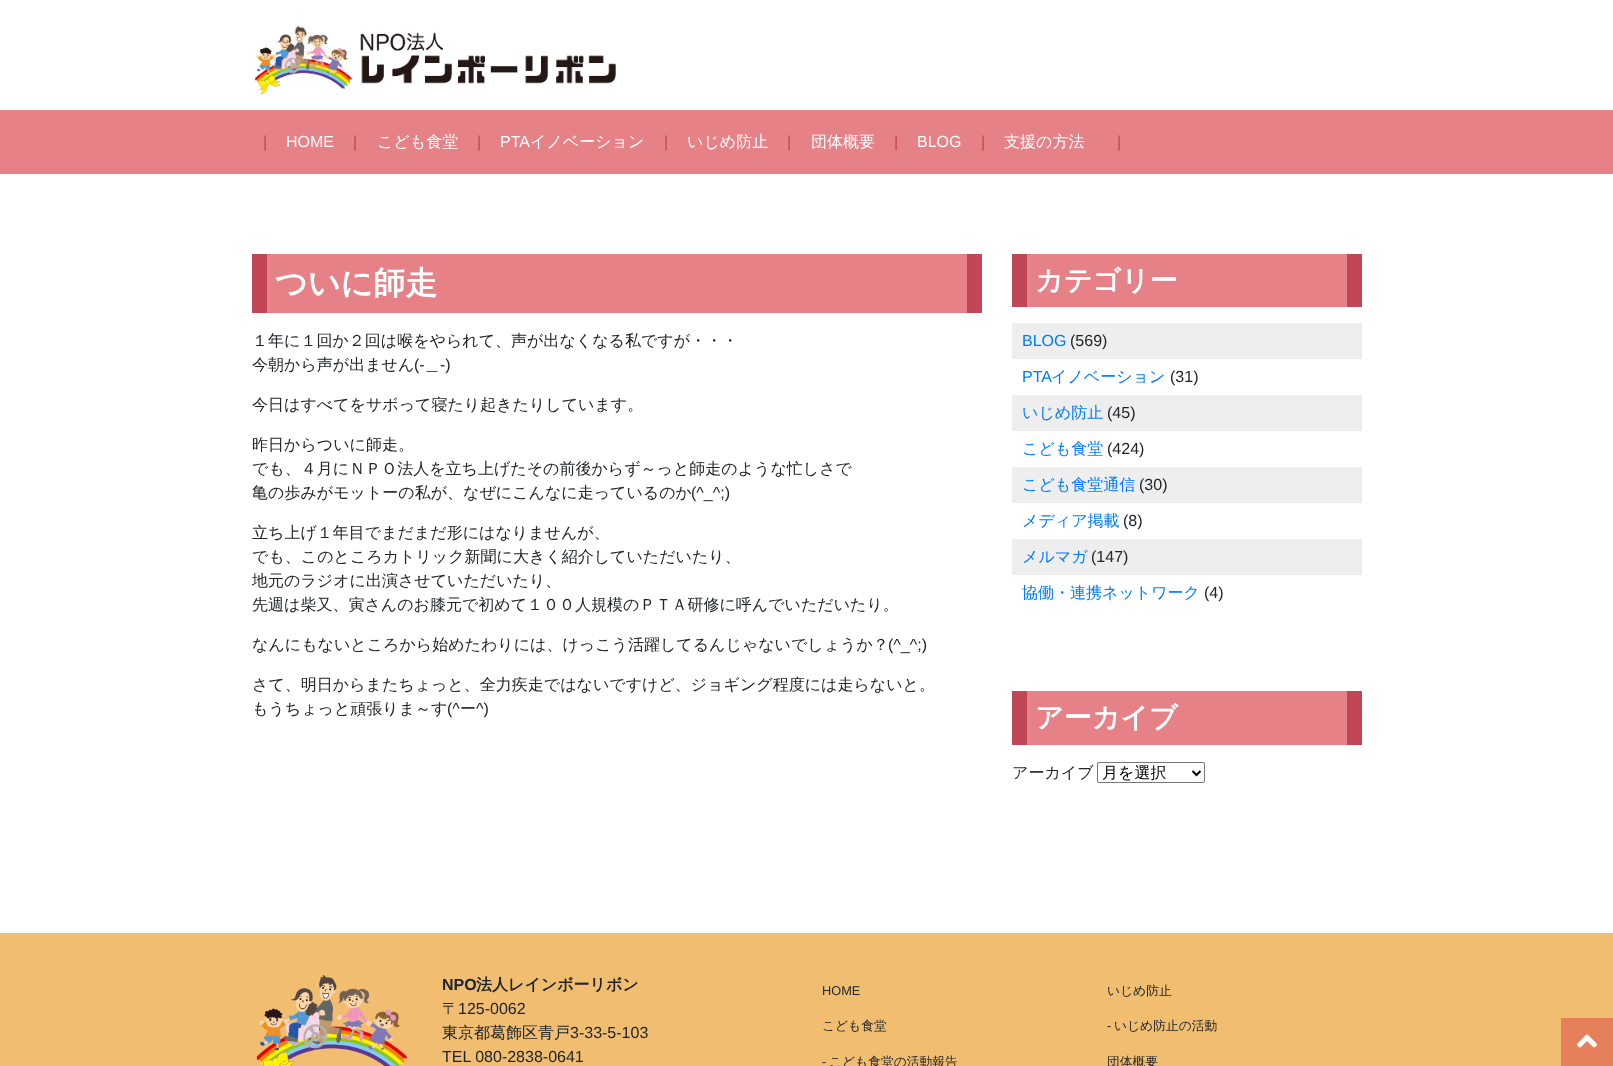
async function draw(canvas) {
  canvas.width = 1613;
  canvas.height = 1066;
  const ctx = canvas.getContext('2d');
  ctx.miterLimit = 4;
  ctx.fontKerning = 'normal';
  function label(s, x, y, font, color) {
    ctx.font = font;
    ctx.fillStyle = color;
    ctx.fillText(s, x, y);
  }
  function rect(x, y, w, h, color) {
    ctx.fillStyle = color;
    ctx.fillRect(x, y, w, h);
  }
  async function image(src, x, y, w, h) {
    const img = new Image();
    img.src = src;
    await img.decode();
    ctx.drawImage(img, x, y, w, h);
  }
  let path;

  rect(0, 0, 1613, 1066, '#fff');
  await image('assets/img1.png', 254, 25, 362, 70);
  rect(0, 110, 1613, 64, '#e58187');
  label('|', 263, 147, '16px Liberation Sans', '#c04658');
  label('HOME', 286, 147, '16px Liberation Sans', '#fff');
  label('|', 353, 147, '16px Liberation Sans', '#c04658');
  label('こども食堂', 377, 147, '500 16px WenQuanYi Zen Hei', '#fff');
  label('|', 477, 147, '16px Liberation Sans', '#c04658');
  label('PTA', 500, 147, '16px Liberation Sans', '#fff');
  label('イノベーション', 530, 147, '500 16px WenQuanYi Zen Hei', '#fff');
  label('|', 664, 147, '16px Liberation Sans', '#c04658');
  label('いじめ防止', 687, 147, '500 16px WenQuanYi Zen Hei', '#fff');
  label('|', 787, 147, '16px Liberation Sans', '#c04658');
  label('団体概要', 811, 147, '500 16px WenQuanYi Zen Hei', '#fff');
  label('|', 894, 147, '16px Liberation Sans', '#c04658');
  label('BLOG', 917, 147, '16px Liberation Sans', '#fff');
  label('|', 981, 147, '16px Liberation Sans', '#c04658');
  label('支援の方法', 1004, 147, '500 16px WenQuanYi Zen Hei', '#fff');
  label('|', 1117, 147, '16px Liberation Sans', '#c04658');
  rect(267, 254, 700, 59, '#e58187');
  rect(967, 254, 15, 59, '#c04658');
  rect(252, 254, 15, 59, '#c04658');
  label('ついに師走', 275, 294, 'bold 32px WenQuanYi Zen Hei', '#fff');
  label('１年に１回か２回は喉をやられて、声が出なくなる私ですが・・・', 252, 346, '500 16px WenQuanYi Zen Hei', '#212529');
  label('今朝から声が出ません', 252, 370, '500 16px WenQuanYi Zen Hei', '#212529');
  label('(-', 414, 370, '16px Liberation Sans', '#212529');
  label('＿', 424, 370, '500 16px WenQuanYi Zen Hei', '#212529');
  label('-)', 440, 370, '16px Liberation Sans', '#212529');
  label('今日はすべてをサボって寝たり起きたりしています。', 252, 410, '500 16px WenQuanYi Zen Hei', '#212529');
  label('昨日からついに師走。', 252, 450, '500 16px WenQuanYi Zen Hei', '#212529');
  label('でも、４月にＮＰＯ法人を立ち上げたその前後からず～っと師走のような忙しさで', 252, 474, '500 16px WenQuanYi Zen Hei', '#212529');
  label('亀の歩みがモットーの私が、なぜにこんなに走っているのか', 252, 498, '500 16px WenQuanYi Zen Hei', '#212529');
  label('(^_^;)', 691, 498, '16px Liberation Sans', '#212529');
  label('立ち上げ１年目でまだまだ形にはなりませんが、', 252, 538, '500 16px WenQuanYi Zen Hei', '#212529');
  label('でも、このところカトリック新聞に大きく紹介していただいたり、', 252, 562, '500 16px WenQuanYi Zen Hei', '#212529');
  label('地元のラジオに出演させていただいたり、', 252, 586, '500 16px WenQuanYi Zen Hei', '#212529');
  label('先週は柴又、寅さんのお膝元で初めて１００人規模のＰＴＡ研修に呼んでいただいたり。', 252, 610, '500 16px WenQuanYi Zen Hei', '#212529');
  label('なんにもないところから始めたわりには、けっこう活躍してるんじゃないでしょうか？', 252, 650, '500 16px WenQuanYi Zen Hei', '#212529');
  label('(^_^;)', 888, 650, '16px Liberation Sans', '#212529');
  label('さて、明日からまたちょっと、全力疾走ではないですけど、ジョギング程度には走らないと。', 252, 690, '500 16px WenQuanYi Zen Hei', '#212529');
  label('もうちょっと頑張りま～す', 252, 714, '500 16px WenQuanYi Zen Hei', '#212529');
  label('(^', 447, 714, '16px Liberation Sans', '#212529');
  label('ー', 460, 714, '500 16px WenQuanYi Zen Hei', '#212529');
  label('^)', 476, 714, '16px Liberation Sans', '#212529');
  rect(1027, 254, 320, 53, '#e58187');
  rect(1347, 254, 15, 53, '#c04658');
  rect(1012, 254, 15, 53, '#c04658');
  label('カテゴリー', 1035, 290, 'bold 28px WenQuanYi Zen Hei', '#fff');
  rect(1012, 323, 350, 36, '#eee');
  label('BLOG', 1022, 346, '16px Liberation Sans', '#007bff');
  label('(569)', 1070, 346, '16px Liberation Sans', '#212529');
  label('PTA', 1022, 382, '16px Liberation Sans', '#007bff');
  label('イノベーション', 1051, 382, '500 16px WenQuanYi Zen Hei', '#007bff');
  label('(31)', 1170, 382, '16px Liberation Sans', '#212529');
  rect(1012, 395, 350, 36, '#eee');
  label('いじめ防止', 1022, 418, '500 16px WenQuanYi Zen Hei', '#007bff');
  label('(45)', 1107, 418, '16px Liberation Sans', '#212529');
  label('こども食堂', 1022, 454, '500 16px WenQuanYi Zen Hei', '#007bff');
  label('(424)', 1107, 454, '16px Liberation Sans', '#212529');
  rect(1012, 467, 350, 36, '#eee');
  label('こども食堂通信', 1022, 490, '500 16px WenQuanYi Zen Hei', '#007bff');
  label('(30)', 1139, 490, '16px Liberation Sans', '#212529');
  label('メディア掲載', 1022, 526, '500 16px WenQuanYi Zen Hei', '#007bff');
  label('(8)', 1123, 526, '16px Liberation Sans', '#212529');
  rect(1012, 539, 350, 36, '#eee');
  label('メルマガ', 1022, 562, '500 16px WenQuanYi Zen Hei', '#007bff');
  label('(147)', 1091, 562, '16px Liberation Sans', '#212529');
  label('協働・連携ネットワーク', 1022, 598, '500 16px WenQuanYi Zen Hei', '#007bff');
  label('(4)', 1204, 598, '16px Liberation Sans', '#212529');
  rect(1027, 691, 320, 54, '#e58187');
  rect(1347, 691, 15, 54, '#c04658');
  rect(1012, 691, 15, 54, '#c04658');
  label('アーカイブ', 1035, 727, 'bold 28px WenQuanYi Zen Hei', '#fff');
  label('アーカイブ', 1012, 778, '500 16px WenQuanYi Zen Hei', '#212529');
  ctx.beginPath();
  ctx.roundRect(1097.5, 762.5, 107, 20, 1.5);
  ctx.strokeStyle = '#767676';
  ctx.stroke();
  path = new Path2D('M1192.5 771L1196.5 775L1200.5 771');
  ctx.strokeStyle = '#000';
  ctx.lineWidth = 2;
  ctx.stroke(path);
  label('月を選択', 1102, 778, '500 16px WenQuanYi Zen Hei', '#000');
  rect(0, 933, 1613, 133, '#f1bd70');
  await image('assets/img2.png', 256, 975, 151, 91);
  label('NPO', 442, 990, 'bold 16px Liberation Sans', '#212529');
  label('法人レインボーリボン', 476, 990, 'bold 16px WenQuanYi Zen Hei', '#212529');
  label('〒', 442, 1014, '500 16px WenQuanYi Zen Hei', '#212529');
  label('125-0062', 458, 1014, '16px Liberation Sans', '#212529');
  label('東京都葛飾区青戸', 442, 1038, '500 16px WenQuanYi Zen Hei', '#212529');
  label('3-33-5-103', 570, 1038, '16px Liberation Sans', '#212529');
  label('TEL 080-2838-0641', 442, 1062, '16px Liberation Sans', '#212529');
  label('HOME', 822, 995, '12.75px Liberation Sans', '#212529');
  label('こども食堂', 822, 1030, '500 12.75px WenQuanYi Zen Hei', '#212529');
  label('-', 822, 1066, '12.75px Liberation Sans', '#212529');
  label('こども食堂の活動報告', 829, 1066, '500 12.75px WenQuanYi Zen Hei', '#212529');
  label('いじめ防止', 1107, 995, '500 12.75px WenQuanYi Zen Hei', '#212529');
  label('-', 1107, 1030, '12.75px Liberation Sans', '#212529');
  label('いじめ防止の活動', 1114, 1030, '500 12.75px WenQuanYi Zen Hei', '#212529');
  label('団体概要', 1107, 1066, '500 12.75px WenQuanYi Zen Hei', '#212529');
  rect(1561, 1018, 52, 48, '#e5805b');
  await image('assets/img3.png', 1577, 1034, 20, 14);
}

draw(document.querySelector('canvas'));
